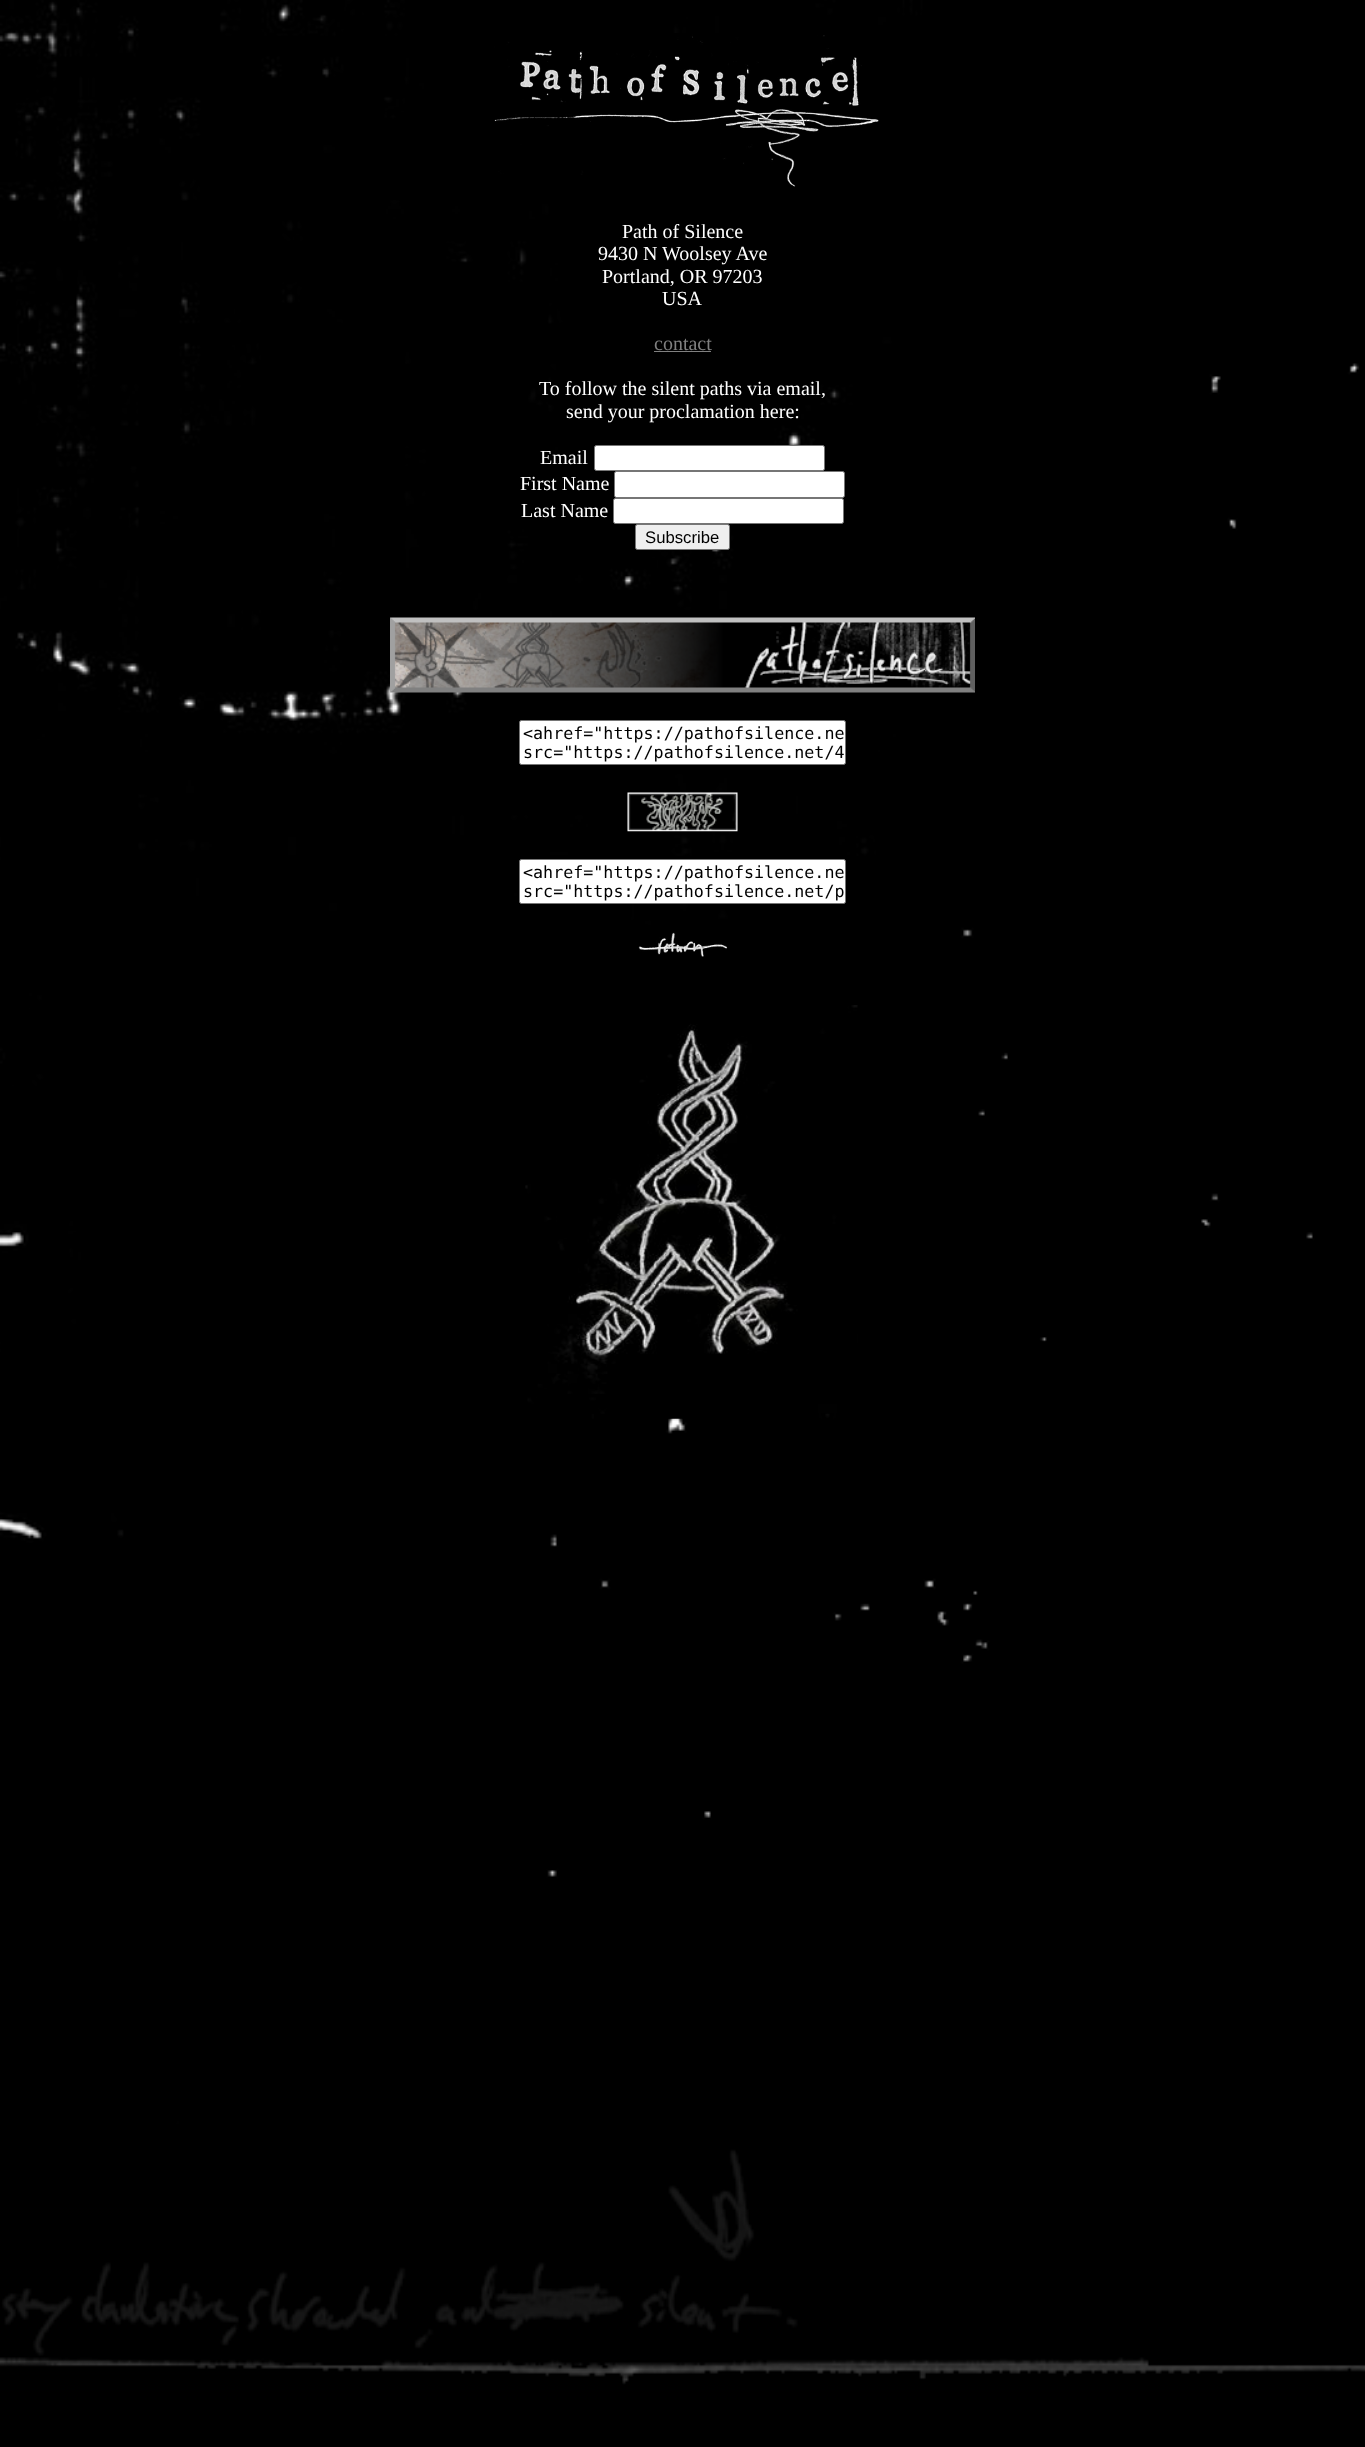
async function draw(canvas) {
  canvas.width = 1365;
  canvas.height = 2447;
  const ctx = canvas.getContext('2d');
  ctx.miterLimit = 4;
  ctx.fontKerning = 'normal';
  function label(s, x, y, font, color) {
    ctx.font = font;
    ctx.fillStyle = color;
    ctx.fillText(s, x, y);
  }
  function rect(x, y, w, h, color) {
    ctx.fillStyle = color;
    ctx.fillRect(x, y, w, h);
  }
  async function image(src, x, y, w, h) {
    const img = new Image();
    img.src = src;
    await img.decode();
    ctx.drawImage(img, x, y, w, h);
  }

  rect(0, 0, 1365, 2447, '#fff');
  await image('assets/img1.png', 0, 0, 1365, 2447);
  await image('assets/img2.png', 494, 33, 385, 154);
  label('Path of Silence', 622, 238, '20px Liberation Serif', '#fff');
  label('9430 N Woolsey Ave', 598, 260, '20px Liberation Serif', '#fff');
  label('Portland, OR 97203', 602, 283, '20px Liberation Serif', '#fff');
  label('USA', 662, 305, '20px Liberation Serif', '#fff');
  label('contact', 654, 350, '20px Liberation Serif', '#808080');
  rect(654, 351, 57, 1, '#808080');
  label('To follow the silent paths via email,', 539, 395, '20px Liberation Serif', '#fff');
  label('send your proclamation here:', 566, 418, '20px Liberation Serif', '#fff');
  label('Email', 540, 464, '20px Liberation Serif', '#fff');
  ctx.beginPath();
  ctx.roundRect(594.5, 445.5, 230, 25, 2);
  ctx.fill();
  ctx.strokeStyle = '#767676';
  ctx.stroke();
  label('First Name', 520, 490, '20px Liberation Serif', '#fff');
  ctx.beginPath();
  ctx.roundRect(614.5, 471.5, 230, 26, 2);
  ctx.fill();
  ctx.stroke();
  label('Last Name', 521, 517, '20px Liberation Serif', '#fff');
  ctx.beginPath();
  ctx.roundRect(613.5, 498.5, 230, 25, 2);
  ctx.fill();
  ctx.stroke();
  ctx.fillStyle = '#efefef';
  ctx.beginPath();
  ctx.roundRect(635.5, 524.5, 94, 25, 2);
  ctx.fill();
  ctx.stroke();
  label('Subscribe', 645, 543, '16.7px Liberation Sans', '#000');
  await image('assets/img3.png', 390, 617, 585, 76);
  ctx.fillStyle = '#fff';
  ctx.beginPath();
  ctx.roundRect(519.5, 720.5, 326, 44, 2);
  ctx.fill();
  ctx.stroke();
  label('<ahref="https://pathofsilence.ne', 523, 739, '16.7px DejaVu Sans Mono', '#000');
  label('src="https://pathofsilence.net/4', 523, 758, '16.7px DejaVu Sans Mono', '#000');
  await image('assets/img4.png', 627, 792, 111, 40);
  ctx.fillStyle = '#fff';
  ctx.beginPath();
  ctx.roundRect(519.5, 859.5, 326, 44, 2);
  ctx.fill();
  ctx.stroke();
  label('<ahref="https://pathofsilence.ne', 523, 878, '16.7px DejaVu Sans Mono', '#000');
  label('src="https://pathofsilence.net/p', 523, 897, '16.7px DejaVu Sans Mono', '#000');
  await image('assets/img5.png', 638, 932, 90, 25);
  await image('assets/img6.png', 525, 1005, 333, 414);
}

draw(document.querySelector('canvas'));
